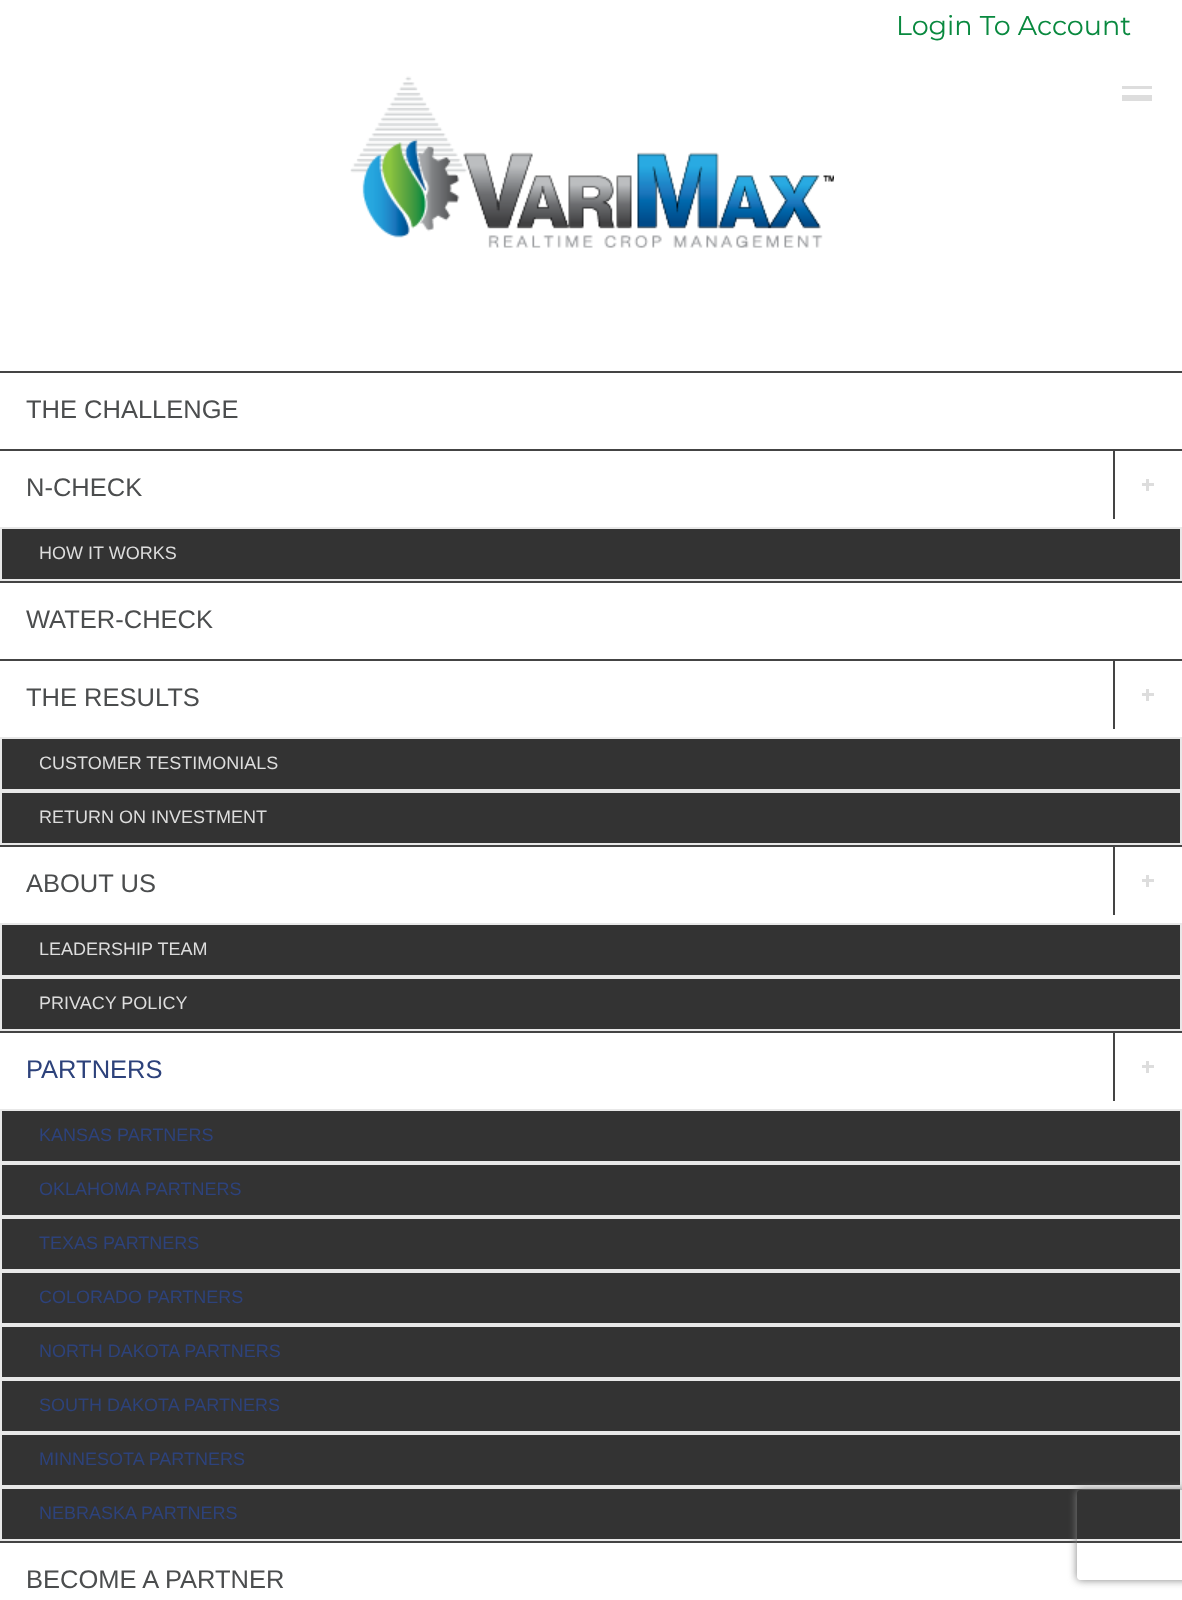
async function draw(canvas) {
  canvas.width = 1182;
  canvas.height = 1600;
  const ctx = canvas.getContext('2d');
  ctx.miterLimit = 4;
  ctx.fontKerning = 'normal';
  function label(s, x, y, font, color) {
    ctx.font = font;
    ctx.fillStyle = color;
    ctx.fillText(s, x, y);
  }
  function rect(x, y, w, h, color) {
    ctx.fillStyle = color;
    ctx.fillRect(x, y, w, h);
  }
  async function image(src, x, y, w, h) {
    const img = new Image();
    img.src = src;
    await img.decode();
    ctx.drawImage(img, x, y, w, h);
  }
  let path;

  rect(0, 0, 1182, 1600, '#fff');
  label('Login To Account', 896, 35, '27px Montserrat', '#09893f');
  await image('assets/img1.png', 350, 76, 484, 172);
  rect(1122, 86, 30, 3, '#ddd');
  rect(1122, 95, 30, 6, '#ddd');
  rect(0, 371, 1182, 2, '#444');
  label('THE CHALLENGE', 26, 418, '25.5px Liberation Sans', '#4b4d4e');
  rect(0, 449, 1182, 2, '#444');
  label('N-CHECK', 26, 496, '25.5px Liberation Sans', '#4b4d4e');
  rect(1113, 450, 2, 69, '#444');
  rect(1146, 479, 3, 12, '#ddd');
  rect(1142, 483, 12, 3, '#ddd');
  ctx.fillStyle = '#333';
  ctx.beginPath();
  ctx.rect(1, 528, 1180, 52);
  ctx.fill();
  ctx.strokeStyle = '#e8e8e8';
  ctx.lineWidth = 2;
  ctx.stroke();
  label('HOW IT WORKS', 39, 559, '18px Liberation Sans', '#ddd');
  rect(0, 581, 1182, 2, '#444');
  label('WATER-CHECK', 26, 628, '25.5px Liberation Sans', '#4b4d4e');
  rect(0, 659, 1182, 2, '#444');
  label('THE RESULTS', 26, 706, '25.5px Liberation Sans', '#4b4d4e');
  rect(1113, 660, 2, 69, '#444');
  rect(1146, 689, 3, 12, '#ddd');
  rect(1142, 693, 12, 3, '#ddd');
  ctx.fillStyle = '#333';
  ctx.beginPath();
  ctx.rect(1, 738, 1180, 52);
  ctx.fill();
  ctx.stroke();
  label('CUSTOMER TESTIMONIALS', 39, 769, '18px Liberation Sans', '#ddd');
  ctx.fillStyle = '#333';
  ctx.beginPath();
  ctx.rect(1, 792, 1180, 52);
  ctx.fill();
  ctx.stroke();
  label('RETURN ON INVESTMENT', 39, 823, '18px Liberation Sans', '#ddd');
  rect(0, 845, 1182, 2, '#444');
  label('ABOUT US', 26, 892, '25.5px Liberation Sans', '#4b4d4e');
  rect(1113, 846, 2, 69, '#444');
  rect(1146, 875, 3, 12, '#ddd');
  rect(1142, 879, 12, 3, '#ddd');
  ctx.fillStyle = '#333';
  ctx.beginPath();
  ctx.rect(1, 924, 1180, 52);
  ctx.fill();
  ctx.stroke();
  label('LEADERSHIP TEAM', 39, 955, '18px Liberation Sans', '#ddd');
  ctx.fillStyle = '#333';
  ctx.beginPath();
  ctx.rect(1, 978, 1180, 52);
  ctx.fill();
  ctx.stroke();
  label('PRIVACY POLICY', 39, 1009, '18px Liberation Sans', '#ddd');
  rect(0, 1031, 1182, 2, '#444');
  label('PARTNERS', 26, 1078, '25.5px Liberation Sans', '#2d427b');
  rect(1113, 1032, 2, 69, '#444');
  rect(1146, 1061, 3, 12, '#ddd');
  rect(1142, 1065, 12, 3, '#ddd');
  ctx.fillStyle = '#333';
  ctx.beginPath();
  ctx.rect(1, 1110, 1180, 52);
  ctx.fill();
  ctx.stroke();
  label('KANSAS PARTNERS', 39, 1141, '18px Liberation Sans', '#2d427b');
  ctx.fillStyle = '#333';
  ctx.beginPath();
  ctx.rect(1, 1164, 1180, 52);
  ctx.fill();
  ctx.stroke();
  label('OKLAHOMA PARTNERS', 39, 1195, '18px Liberation Sans', '#2d427b');
  ctx.fillStyle = '#333';
  ctx.beginPath();
  ctx.rect(1, 1218, 1180, 52);
  ctx.fill();
  ctx.stroke();
  label('TEXAS PARTNERS', 39, 1249, '18px Liberation Sans', '#2d427b');
  ctx.fillStyle = '#333';
  ctx.beginPath();
  ctx.rect(1, 1272, 1180, 52);
  ctx.fill();
  ctx.stroke();
  label('COLORADO PARTNERS', 39, 1303, '18px Liberation Sans', '#2d427b');
  ctx.fillStyle = '#333';
  ctx.beginPath();
  ctx.rect(1, 1326, 1180, 52);
  ctx.fill();
  ctx.stroke();
  label('NORTH DAKOTA PARTNERS', 39, 1357, '18px Liberation Sans', '#2d427b');
  ctx.fillStyle = '#333';
  ctx.beginPath();
  ctx.rect(1, 1380, 1180, 52);
  ctx.fill();
  ctx.stroke();
  label('SOUTH DAKOTA PARTNERS', 39, 1411, '18px Liberation Sans', '#2d427b');
  ctx.fillStyle = '#333';
  ctx.beginPath();
  ctx.rect(1, 1434, 1180, 52);
  ctx.fill();
  ctx.stroke();
  label('MINNESOTA PARTNERS', 39, 1465, '18px Liberation Sans', '#2d427b');
  ctx.fillStyle = '#333';
  ctx.beginPath();
  ctx.rect(1, 1488, 1180, 52);
  ctx.fill();
  ctx.stroke();
  label('NEBRASKA PARTNERS', 39, 1519, '18px Liberation Sans', '#2d427b');
  rect(0, 1541, 1182, 2, '#444');
  label('BECOME A PARTNER', 26, 1588, '25.5px Liberation Sans', '#4b4d4e');
  ctx.save();
  path = new Path2D('M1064 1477H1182V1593H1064ZM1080 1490H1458C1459.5 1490 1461 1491.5 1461 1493V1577C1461 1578.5 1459.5 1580 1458 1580H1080C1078.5 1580 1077 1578.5 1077 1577V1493C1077 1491.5 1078.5 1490 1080 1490Z');
  ctx.clip(path, 'evenodd');
  ctx.fillStyle = '#808080';
  ctx.filter = 'blur(4px)';
  ctx.beginPath();
  ctx.roundRect(1077, 1490, 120, 90, 3);
  ctx.fill();
  ctx.filter = 'none';
  ctx.restore();
}

draw(document.querySelector('canvas'));
